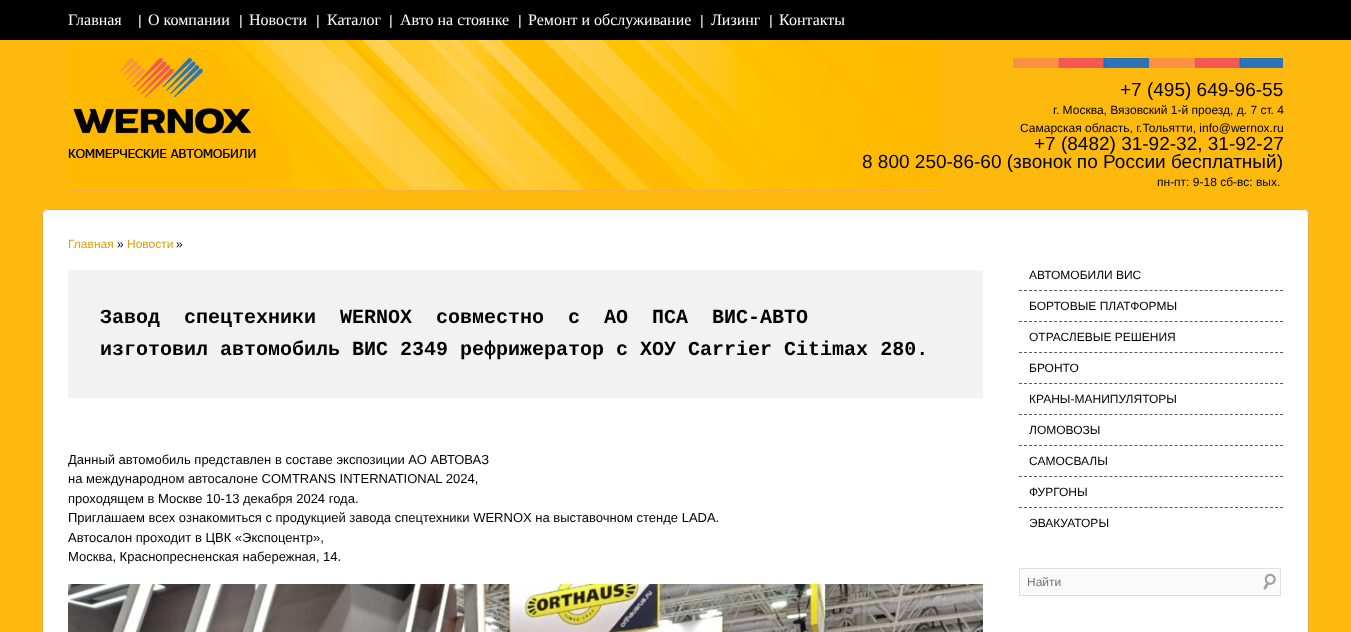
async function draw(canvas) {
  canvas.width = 1351;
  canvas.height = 632;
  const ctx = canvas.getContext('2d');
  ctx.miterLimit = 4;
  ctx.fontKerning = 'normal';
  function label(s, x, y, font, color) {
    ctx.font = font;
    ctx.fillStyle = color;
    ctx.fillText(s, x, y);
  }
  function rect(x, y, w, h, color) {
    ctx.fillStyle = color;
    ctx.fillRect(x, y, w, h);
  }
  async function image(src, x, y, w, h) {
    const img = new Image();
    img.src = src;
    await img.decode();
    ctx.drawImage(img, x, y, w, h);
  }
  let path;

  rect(0, 0, 1351, 632, '#fdb90d');
  rect(0, 0, 1351, 40, '#000');
  label('Главная', 68, 25, '16px Liberation Serif', '#fff');
  await image('assets/img1.png', 139, 15, 2, 13);
  label('О компании', 148, 25, '16px Liberation Serif', '#fff');
  await image('assets/img1.png', 240, 15, 2, 13);
  label('Новости', 249, 25, '16px Liberation Serif', '#fff');
  await image('assets/img1.png', 317, 15, 2, 13);
  label('Каталог', 327, 25, '16px Liberation Serif', '#fff');
  await image('assets/img1.png', 390, 15, 2, 13);
  label('Авто на стоянке', 400, 25, '16px Liberation Serif', '#fff');
  await image('assets/img1.png', 519, 15, 2, 13);
  label('Ремонт и обслуживание', 528, 25, '16px Liberation Serif', '#fff');
  await image('assets/img1.png', 701, 15, 2, 13);
  label('Лизинг', 711, 25, '16px Liberation Serif', '#fff');
  await image('assets/img1.png', 770, 15, 2, 13);
  label('Контакты', 779, 25, '16px Liberation Serif', '#fff');
  await image('assets/img2.png', 68, 40, 874, 151);
  await image('assets/img3.png', 68, 58, 188, 100);
  await image('assets/img4.png', 1013, 58, 270, 10);
  label('+7 (495) 649-96-55', 1120, 96, '19px Liberation Sans', '#000');
  label('г. Москва, Вязовский 1-й проезд, д. 7 ст. 4', 1053, 114, '12px Liberation Sans', '#000');
  label('Самарская область, г.Тольятти, info@wernox.ru', 1020, 132, '12px Liberation Sans', '#000');
  label('+7 (8482) 31-92-32, 31-92-27', 1034, 150, '19px Liberation Sans', '#000');
  label('8 800 250-86-60 (звонок по России бесплатный)', 862, 168, '19px Liberation Sans', '#000');
  label('пн-пт: 9-18 сб-вс: вых.', 1157, 186, '12px Liberation Sans', '#000');
  ctx.fillStyle = '#fff';
  path = new Path2D('M48 209H1303C1306.5 209 1309 211.5 1309 215V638H42V215C42 211.5 44.5 209 48 209Z');
  ctx.fill(path);
  ctx.fillStyle = '#e5ab46';
  path = new Path2D('M48 209H1303C1306 209 1309 212 1309 215V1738H42V215C42 212 45 209 48 209ZM48 210H1303C1306 210 1308 212 1308 215V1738H43V215C43 212 45 210 48 210Z');
  ctx.fill(path, 'evenodd');
  label('Главная', 68, 248, '12px Liberation Sans', '#dca008');
  label('»', 117, 248, '12px Liberation Sans', '#000');
  label('Новости', 127, 248, '12px Liberation Sans', '#dca008');
  label('»', 176, 248, '12px Liberation Sans', '#000');
  rect(68, 270, 915, 128, '#f2f2f2');
  label('Завод  спецтехники  WERNOX  совместно  с  АО  ПСА  ВИС-АВТО', 100, 323, 'bold 20px Liberation Mono', '#000');
  label('изготовил автомобиль ВИС 2349 рефрижератор с ХОУ Carrier Citimax 280.', 100, 355, 'bold 20px Liberation Mono', '#000');
  ctx.save();
  ctx.beginPath();
  ctx.rect(68, 253, 915, 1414);
  ctx.clip();
  label('Данный автомобиль представлен в составе экспозиции АО АВТОВАЗ', 68, 464, '13px Liberation Sans', '#000');
  ctx.restore();
  label('на международном автосалоне COMTRANS INTERNATIONAL 2024,', 68, 483, '13px Liberation Sans', '#000');
  label('проходящем в Москве 10-13 декабря 2024 года.', 68, 503, '13px Liberation Sans', '#000');
  label('Приглашаем всех ознакомиться с продукцией завода спецтехники WERNOX на выставочном стенде LADA.', 68, 522, '13px Liberation Sans', '#000');
  label('Автосалон проходит в ЦВК «Экспоцентр»,', 68, 542, '13px Liberation Sans', '#000');
  label('Москва, Краснопресненская набережная, 14.', 68, 561, '13px Liberation Sans', '#000');
  await image('assets/img5.png', 68, 584, 915, 48);
  label('АВТОМОБИЛИ ВИС', 1029, 279, '12px Liberation Sans', '#000');
  path = new Path2D('M1019 290.5H1283');
  ctx.strokeStyle = '#595959';
  ctx.setLineDash([3, 2.02]);
  ctx.stroke(path);
  label('БОРТОВЫЕ ПЛАТФОРМЫ', 1029, 310, '12px Liberation Sans', '#000');
  path = new Path2D('M1019 321.5H1283');
  ctx.stroke(path);
  label('ОТРАСЛЕВЫЕ РЕШЕНИЯ', 1029, 341, '12px Liberation Sans', '#000');
  path = new Path2D('M1019 352.5H1283');
  ctx.stroke(path);
  label('БРОНТО', 1029, 372, '12px Liberation Sans', '#000');
  path = new Path2D('M1019 383.5H1283');
  ctx.stroke(path);
  label('КРАНЫ-МАНИПУЛЯТОРЫ', 1029, 403, '12px Liberation Sans', '#000');
  path = new Path2D('M1019 414.5H1283');
  ctx.stroke(path);
  label('ЛОМОВОЗЫ', 1029, 434, '12px Liberation Sans', '#000');
  path = new Path2D('M1019 445.5H1283');
  ctx.stroke(path);
  label('САМОСВАЛЫ', 1029, 465, '12px Liberation Sans', '#000');
  path = new Path2D('M1019 476.5H1283');
  ctx.stroke(path);
  label('ФУРГОНЫ', 1029, 496, '12px Liberation Sans', '#000');
  path = new Path2D('M1019 507.5H1283');
  ctx.stroke(path);
  label('ЭВАКУАТОРЫ', 1029, 527, '12px Liberation Sans', '#000');
  ctx.fillStyle = '#00000033';
  ctx.filter = 'blur(0.5px)';
  ctx.beginPath();
  ctx.rect(1019, 568, 262, 28);
  ctx.fill();
  ctx.filter = 'none';
  rect(1020, 569, 260, 26, '#fafafa');
  await image('assets/img6.png', 1263, 573, 13, 17);
  ctx.strokeStyle = '#e0e0e0';
  ctx.setLineDash([]);
  ctx.strokeRect(1019.5, 568.5, 261, 27);
  label('Найти', 1027, 586, '12px Liberation Sans', '#757575');
}

draw(document.querySelector('canvas'));
